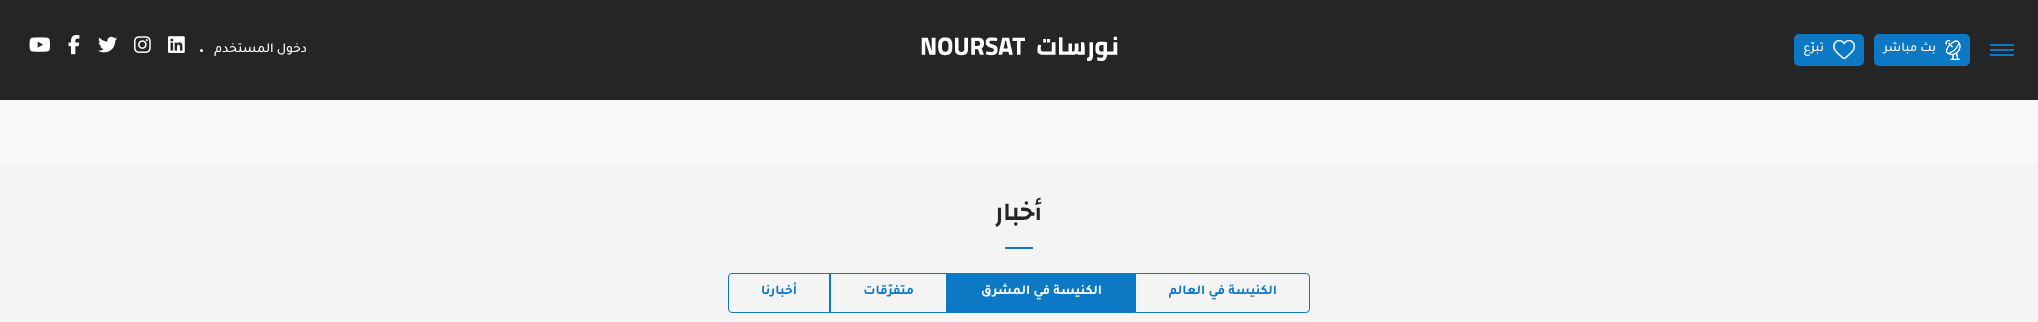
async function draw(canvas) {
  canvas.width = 2038;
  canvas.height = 322;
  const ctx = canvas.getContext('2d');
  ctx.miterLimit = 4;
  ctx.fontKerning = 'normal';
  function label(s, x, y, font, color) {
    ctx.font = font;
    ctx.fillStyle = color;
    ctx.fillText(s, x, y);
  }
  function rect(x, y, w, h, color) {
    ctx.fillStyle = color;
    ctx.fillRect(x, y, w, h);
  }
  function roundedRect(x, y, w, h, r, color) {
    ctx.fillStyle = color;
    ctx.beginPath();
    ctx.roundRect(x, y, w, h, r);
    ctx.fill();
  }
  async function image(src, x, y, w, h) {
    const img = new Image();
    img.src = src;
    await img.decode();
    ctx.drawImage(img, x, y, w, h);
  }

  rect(0, 0, 2038, 322, '#f8f9fa');
  rect(0, 0, 2038, 100, '#252525');
  rect(1990, 49, 24, 2, '#0d79c5');
  rect(1990, 44, 24, 2, '#0d79c5');
  rect(1990, 54, 24, 2, '#0d79c5');
  roundedRect(1874, 34, 96, 32, 5, '#0d79c5');
  await image('assets/img1.png', 1945, 40, 16, 20);
  ctx.direction = 'rtl';
  label('بث مباشر', 1936, 51, '500 13px Tajawal', '#fff');
  roundedRect(1794, 34, 70, 32, 5, '#0d79c5');
  await image('assets/img2.png', 1833, 40, 22, 19);
  label('تبرّع', 1824, 51, '500 13px Tajawal', '#fff');
  await image('assets/img3.png', 921, 36, 197, 25);
  label('دخول المستخدم', 307, 52, '500 13.5px Tajawal', '#fff');
  ctx.beginPath();
  ctx.arc(201.5, 50.5, 1.5, 0, 2 * Math.PI);
  ctx.fill();
  await image('assets/img4.png', 168, 36, 17, 17);
  await image('assets/img5.png', 134, 36, 17, 17);
  await image('assets/img6.png', 98, 36, 19, 17);
  await image('assets/img7.png', 68, 35, 12, 20);
  await image('assets/img8.png', 29, 37, 21, 15);
  rect(0, 164, 2038, 158, '#f4f4f4');
  label('أخبار', 1042, 220, '600 26px Changa', '#252525');
  rect(1005, 247, 28, 2, '#0d79c5');
  ctx.beginPath();
  ctx.roundRect(1135.5, 273.5, 174, 39, [0, 3.5, 3.5, 0]);
  ctx.strokeStyle = '#0d79c5';
  ctx.stroke();
  label('الكنيسة في العالم', 1277, 294, 'bold 13.5px Tajawal', '#0d79c5');
  rect(947, 273, 188, 40, '#0d79c5');
  label('الكنيسة في المشرق', 1102, 294, 'bold 13.5px Tajawal', '#fff');
  ctx.strokeRect(830.5, 273.5, 116, 39);
  label('متفرّقات', 914, 294, 'bold 13.5px Tajawal', '#0d79c5');
  ctx.beginPath();
  ctx.roundRect(728.5, 273.5, 101, 39, [3.5, 0, 0, 3.5]);
  ctx.stroke();
  label('أخبارنا', 797, 294, 'bold 13.5px Tajawal', '#0d79c5');
}

draw(document.querySelector('canvas'));
